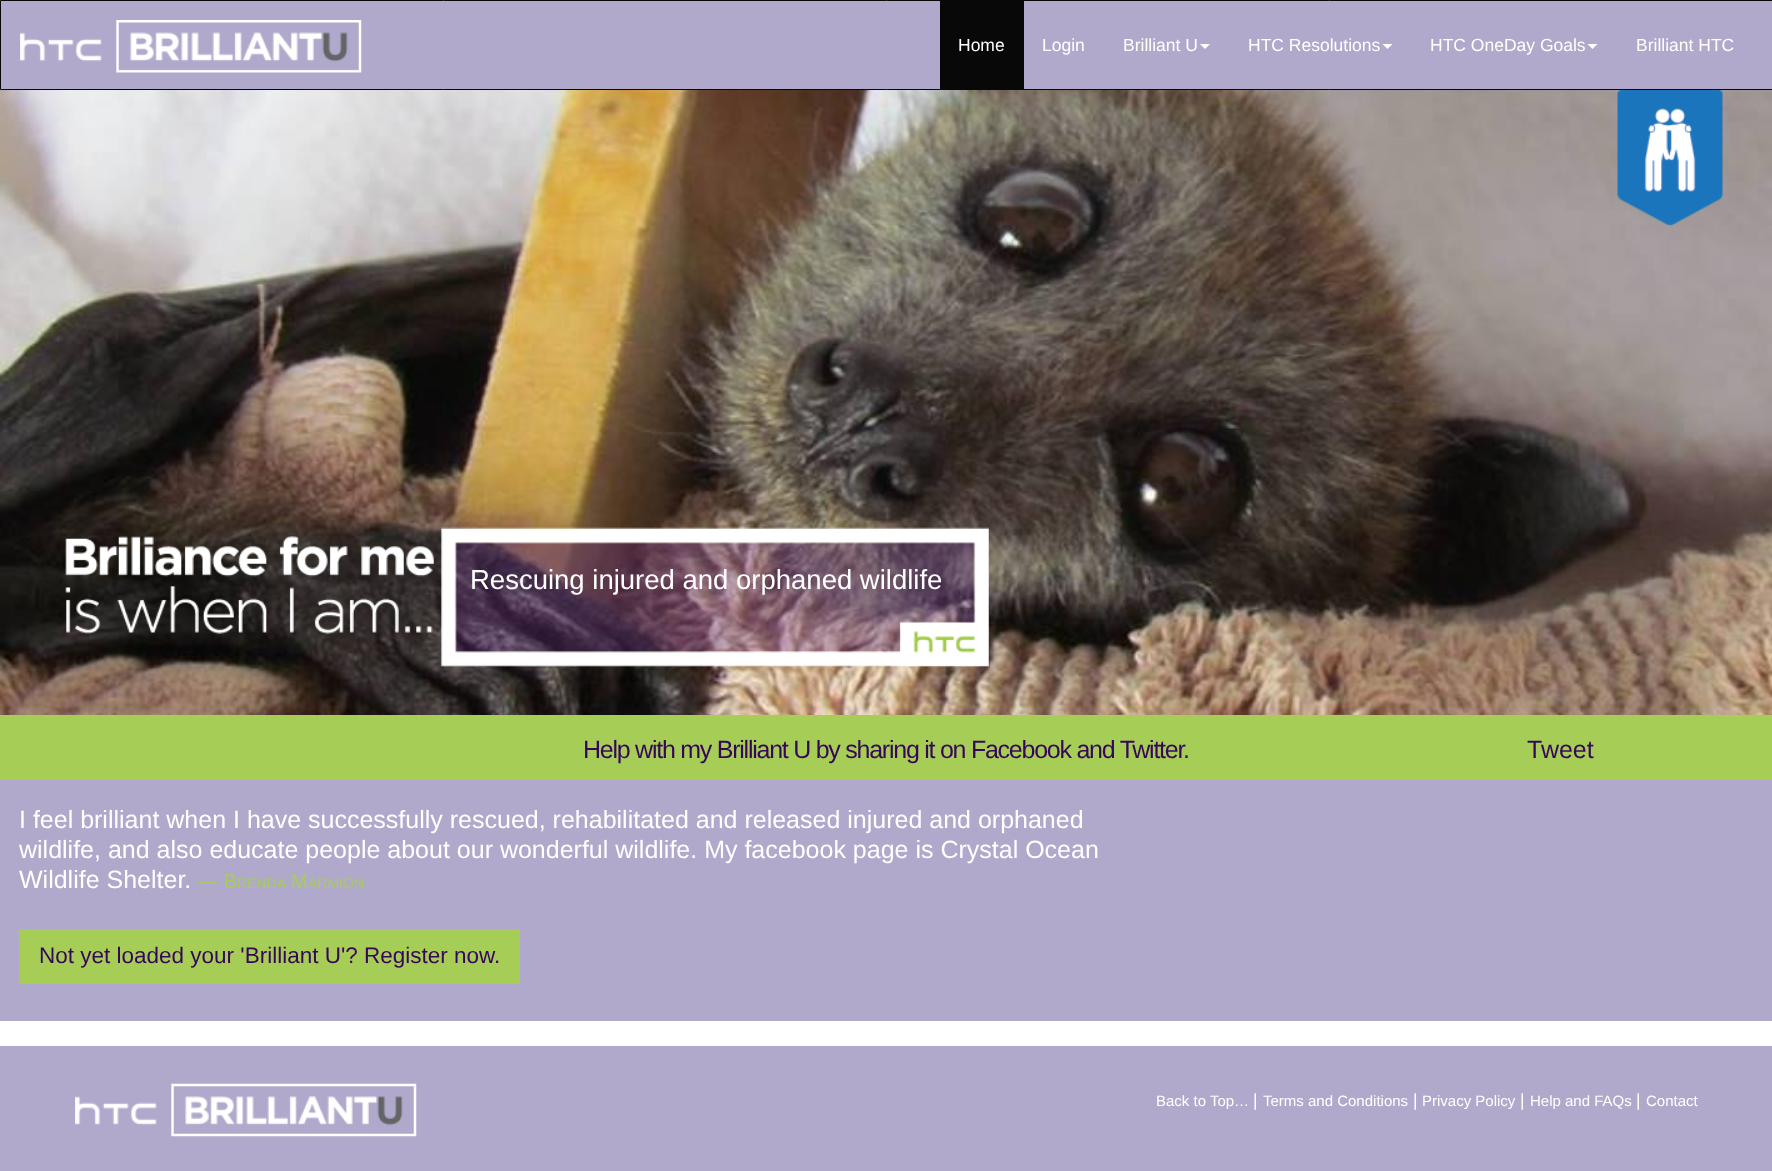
async function draw(canvas) {
  canvas.width = 1772;
  canvas.height = 1171;
  const ctx = canvas.getContext('2d');
  ctx.miterLimit = 4;
  ctx.fontKerning = 'normal';
  function label(s, x, y, font, color) {
    ctx.font = font;
    ctx.fillStyle = color;
    ctx.fillText(s, x, y);
  }
  function rect(x, y, w, h, color) {
    ctx.fillStyle = color;
    ctx.fillRect(x, y, w, h);
  }
  function roundedRect(x, y, w, h, r, color) {
    ctx.fillStyle = color;
    ctx.beginPath();
    ctx.roundRect(x, y, w, h, r);
    ctx.fill();
  }
  async function image(src, x, y, w, h) {
    const img = new Image();
    img.src = src;
    await img.decode();
    ctx.drawImage(img, x, y, w, h);
  }
  let path;

  rect(0, 0, 1772, 1171, '#a6cd55');
  ctx.fillStyle = '#b1a9cb';
  ctx.beginPath();
  ctx.rect(0.5, 0.5, 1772, 89);
  ctx.fill();
  ctx.strokeStyle = '#080808';
  ctx.stroke();
  await image('assets/img1.png', 20, 20, 342, 53);
  rect(940, 1, 84, 88, '#080808');
  label('Home', 958, 51, '17.5px Liberation Sans', '#fff');
  label('Login', 1042, 51, '17.5px Liberation Sans', '#fff');
  label('Brilliant U', 1123, 51, '17.5px Liberation Sans', '#fff');
  path = new Path2D('M1200 44H1210L1205 49Z');
  ctx.fill(path);
  label('HTC Resolutions', 1248, 51, '17.5px Liberation Sans', '#fff');
  path = new Path2D('M1382.5 44H1392.5L1387.5 49Z');
  ctx.fill(path);
  label('HTC OneDay Goals', 1430, 51, '17.5px Liberation Sans', '#fff');
  path = new Path2D('M1587.5 44H1597.5L1592.5 49Z');
  ctx.fill(path);
  label('Brilliant HTC', 1636, 51, '17.5px Liberation Sans', '#fff');
  await image('assets/img2.png', 0, 90, 1772, 625);
  await image('assets/img3.png', 1617, 90, 106, 136);
  await image('assets/img4.png', 65, 527, 924, 140);
  label('Rescuing injured and orphaned wildlife', 470, 589, '27.5px Liberation Sans', '#fff');
  ctx.letterSpacing = '-1.25px';
  label('Help with my Brilliant U by sharing it on Facebook and Twitter.', 583, 758, '25px Liberation Sans', '#36065b');
  ctx.letterSpacing = '0px';
  label('Tweet', 1527, 758, '25px Liberation Sans', '#36065b');
  rect(0, 780, 1772, 391, '#b1a9cb');
  label('I feel brilliant when I have successfully rescued, rehabilitated and released injured and orphaned', 19, 828, '25px Liberation Sans', '#fff');
  label('wildlife, and also educate people about our wonderful wildlife. My facebook page is Crystal Ocean', 19, 858, '25px Liberation Sans', '#fff');
  label('Wildlife Shelter.', 19, 888, '25px Liberation Sans', '#fff');
  label('— B', 198, 888, '20px Liberation Sans', '#a6cd55');
  label('RENDA', 237, 888, '14px Liberation Sans', '#a6cd55');
  label('M', 291, 888, '20px Liberation Sans', '#a6cd55');
  label('ARMION', 308, 888, '14px Liberation Sans', '#a6cd55');
  roundedRect(19, 929, 501, 55, 2.5, '#a6cd55');
  label('Not yet loaded your \'Brilliant U\'? Register now.', 39, 963, '22.5px Liberation Sans', '#36065b');
  rect(0, 1021, 1772, 25, '#fff');
  await image('assets/img5.png', 75, 1083, 342, 54);
  label('Back to Top…', 1156, 1106, '15px Liberation Sans', '#fff');
  label('|', 1253, 1106, '17.5px Liberation Sans', '#fff');
  label('Terms and Conditions', 1263, 1106, '15px Liberation Sans', '#fff');
  label('|', 1413, 1106, '17.5px Liberation Sans', '#fff');
  label('Privacy Policy', 1422, 1106, '15px Liberation Sans', '#fff');
  label('|', 1520, 1106, '17.5px Liberation Sans', '#fff');
  label('Help and FAQs', 1530, 1106, '15px Liberation Sans', '#fff');
  label('|', 1636, 1106, '17.5px Liberation Sans', '#fff');
  label('Contact', 1646, 1106, '15px Liberation Sans', '#fff');
}

draw(document.querySelector('canvas'));
